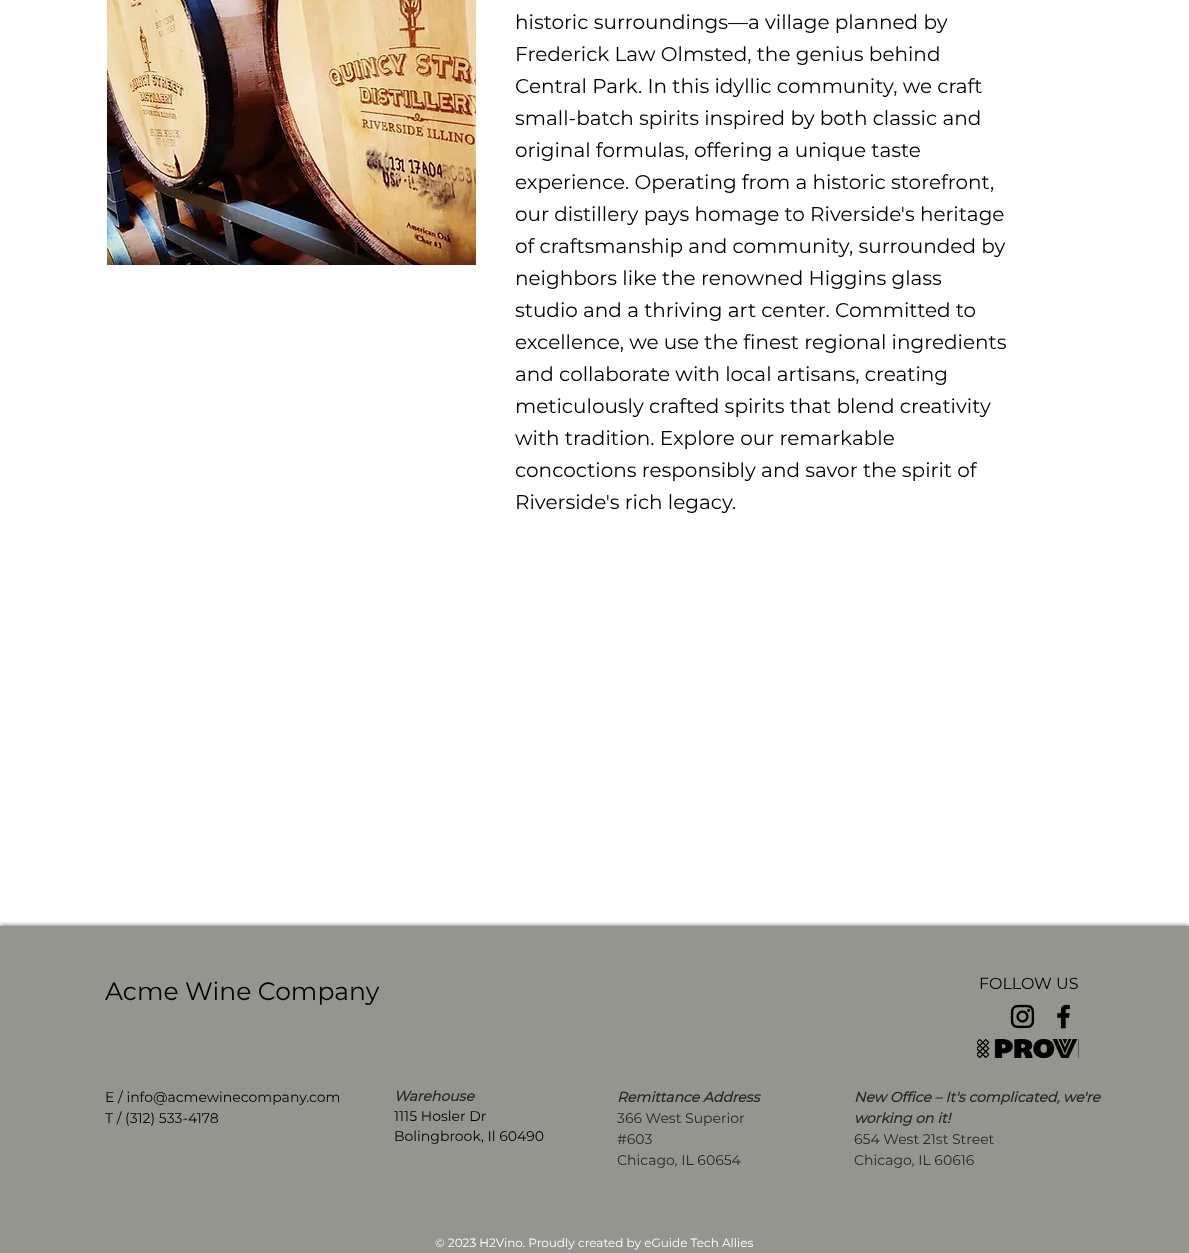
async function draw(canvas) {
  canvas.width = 1189;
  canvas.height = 1253;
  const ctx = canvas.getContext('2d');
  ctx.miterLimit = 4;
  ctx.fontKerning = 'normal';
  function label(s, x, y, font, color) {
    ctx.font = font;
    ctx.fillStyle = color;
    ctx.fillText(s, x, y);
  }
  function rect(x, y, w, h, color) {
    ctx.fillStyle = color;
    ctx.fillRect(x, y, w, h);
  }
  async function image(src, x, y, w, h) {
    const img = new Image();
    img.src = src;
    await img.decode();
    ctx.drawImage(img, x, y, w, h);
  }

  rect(0, 0, 1189, 1253, '#fff');
  await image('assets/img1.png', 107, 0, 369, 265);
  label('historic surroundings—a village planned by', 515, 29, '20px Montserrat', '#000');
  label('Frederick Law Olmsted, the genius behind', 515, 61, '20px Montserrat', '#000');
  label('Central Park. In this idyllic community, we craft', 515, 93, '20px Montserrat', '#000');
  label('small-batch spirits inspired by both classic and', 515, 125, '20px Montserrat', '#000');
  label('original formulas, offering a unique taste', 515, 157, '20px Montserrat', '#000');
  label('experience. Operating from a historic storefront,', 515, 189, '20px Montserrat', '#000');
  label('our distillery pays homage to Riverside\'s heritage', 515, 221, '20px Montserrat', '#000');
  label('of craftsmanship and community, surrounded by', 515, 253, '20px Montserrat', '#000');
  label('neighbors like the renowned Higgins glass', 515, 285, '20px Montserrat', '#000');
  label('studio and a thriving art center. Committed to', 515, 317, '20px Montserrat', '#000');
  label('excellence, we use the finest regional ingredients', 515, 349, '20px Montserrat', '#000');
  label('and collaborate with local artisans, creating', 515, 381, '20px Montserrat', '#000');
  label('meticulously crafted spirits that blend creativity', 515, 413, '20px Montserrat', '#000');
  label('with tradition. Explore our remarkable', 515, 445, '20px Montserrat', '#000');
  label('concoctions responsibly and savor the spirit of', 515, 477, '20px Montserrat', '#000');
  label('Riverside\'s rich legacy.', 515, 509, '20px Montserrat', '#000');
  ctx.fillStyle = '#000000b3';
  ctx.filter = 'blur(2.5px)';
  ctx.beginPath();
  ctx.rect(0, 926, 1189, 327);
  ctx.fill();
  ctx.filter = 'none';
  rect(0, 926, 1189, 327, '#95958f');
  label('Acme Wine Company', 105, 1000, '25px "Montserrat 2"', '#000');
  label('FOLLOW US', 979, 989, '16px Montserrat', '#000');
  await image('assets/img2.png', 1010, 1004, 25, 25);
  await image('assets/img3.png', 1057, 1004, 13, 25);
  await image('assets/img4.png', 1010, 1004, 25, 25);
  await image('assets/img5.png', 1057, 1004, 13, 25);
  await image('assets/img6.png', 977, 1039, 102, 19);
  label('E / info@acmewinecompany.com', 105, 1102, '14px Montserrat', '#000');
  label('T / (312) 533-4178', 105, 1123, '14px Montserrat', '#000');
  label('Warehouse', 394, 1101, 'italic bold 14px Montserrat', '#282626');
  label('1115 Hosler Dr', 394, 1121, '14px Montserrat', '#000');
  label('Bolingbrook, Il 60490', 394, 1141, '14px Montserrat', '#000');
  label('Remittance Address', 617, 1102, 'italic bold 14px Montserrat', '#282626');
  label('366 West Superior', 617, 1123, '14px Montserrat', '#282626');
  label('#603', 617, 1144, '14px Montserrat', '#282626');
  label('Chicago, IL 60654', 617, 1165, '14px Montserrat', '#282626');
  label('New Office – It\'s complicated, we\'re', 854, 1102, 'italic bold 14px Montserrat', '#282626');
  label('working on it!', 854, 1123, 'italic bold 14px Montserrat', '#282626');
  label('654 West 21st Street', 854, 1144, '14px Montserrat', '#282626');
  label('Chicago, IL 60616', 854, 1165, '14px Montserrat', '#282626');
  label('© 2023 H2Vino. Proudly created by eGuide Tech Allies', 435, 1247, '12px Montserrat', '#fff');
}

draw(document.querySelector('canvas'));
